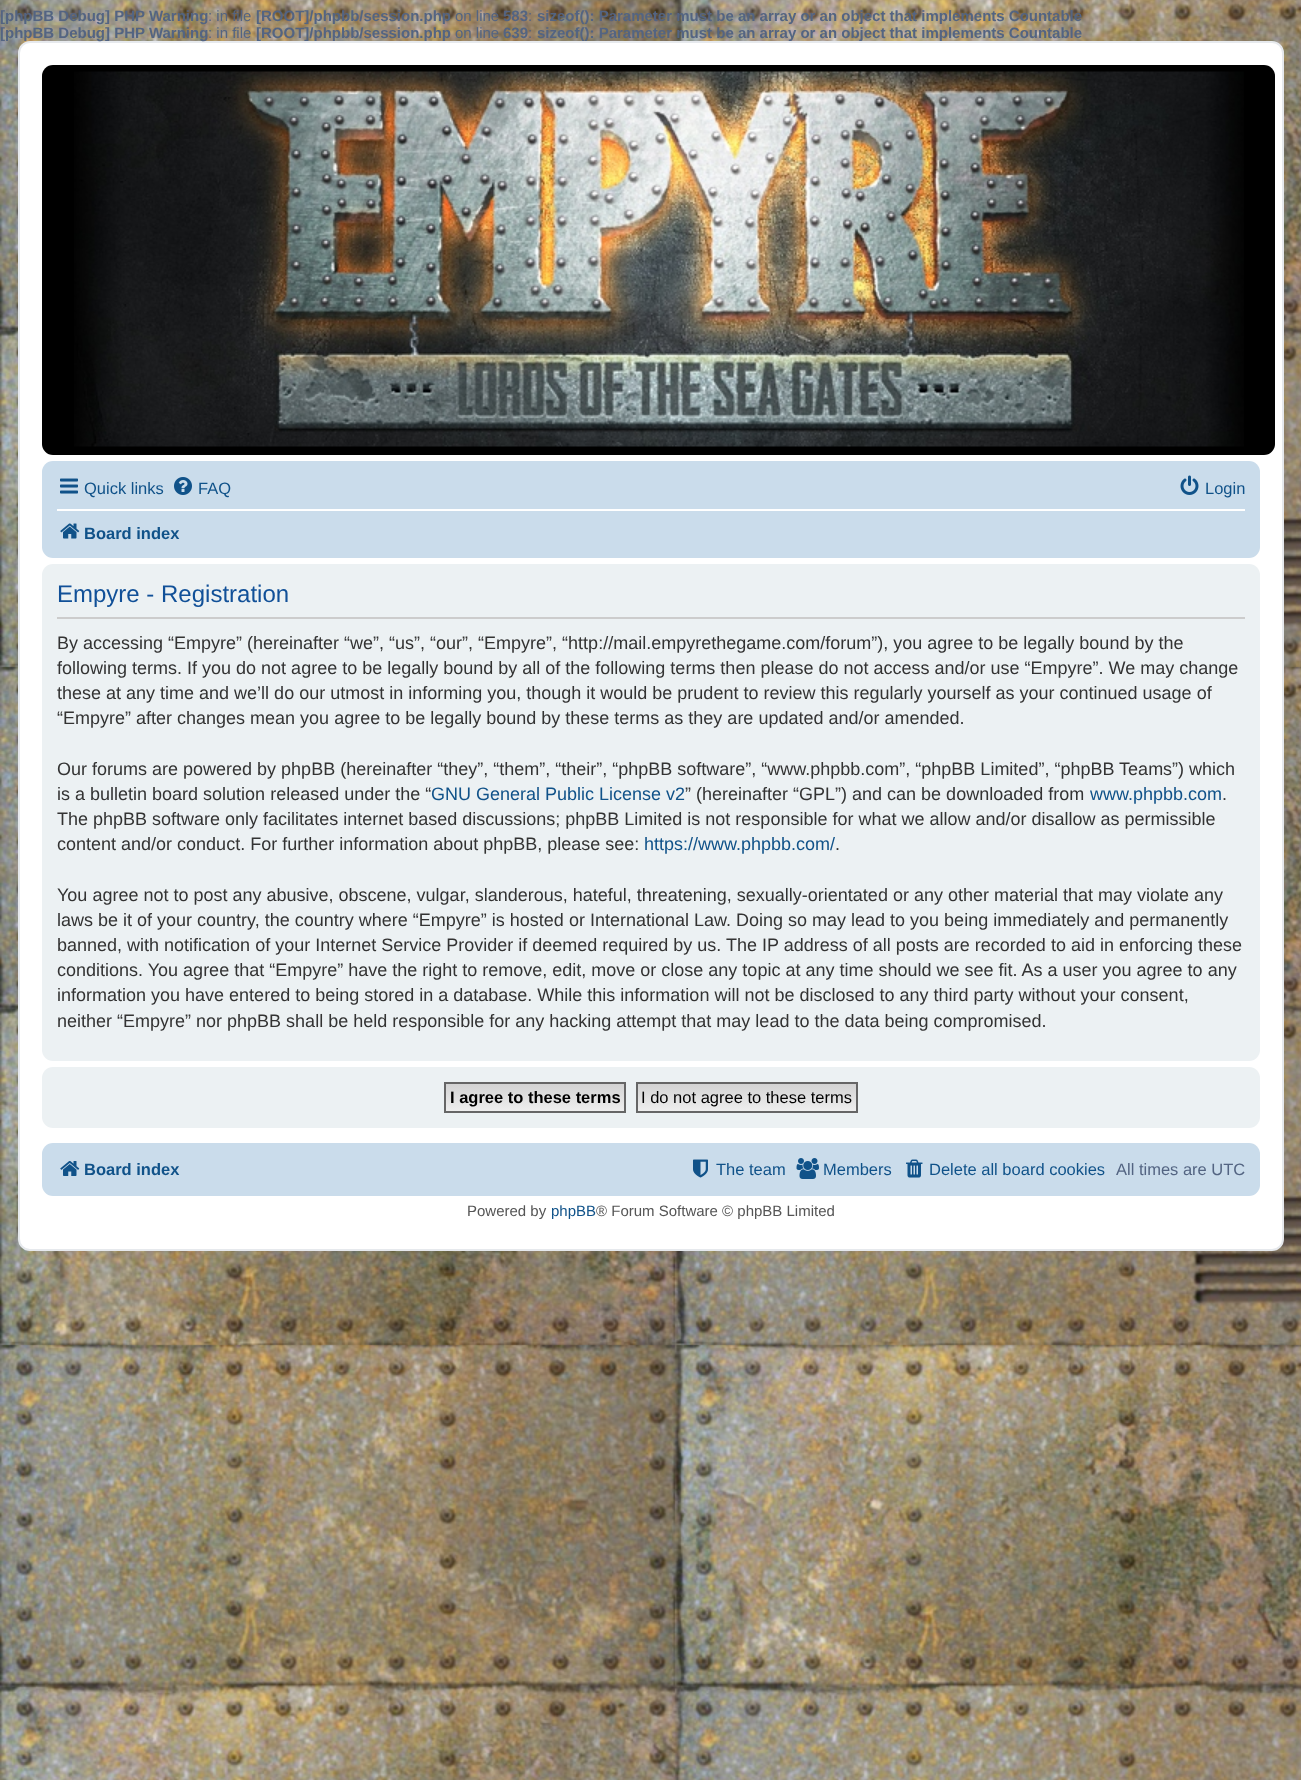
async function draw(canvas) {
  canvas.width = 1301;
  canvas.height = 1780;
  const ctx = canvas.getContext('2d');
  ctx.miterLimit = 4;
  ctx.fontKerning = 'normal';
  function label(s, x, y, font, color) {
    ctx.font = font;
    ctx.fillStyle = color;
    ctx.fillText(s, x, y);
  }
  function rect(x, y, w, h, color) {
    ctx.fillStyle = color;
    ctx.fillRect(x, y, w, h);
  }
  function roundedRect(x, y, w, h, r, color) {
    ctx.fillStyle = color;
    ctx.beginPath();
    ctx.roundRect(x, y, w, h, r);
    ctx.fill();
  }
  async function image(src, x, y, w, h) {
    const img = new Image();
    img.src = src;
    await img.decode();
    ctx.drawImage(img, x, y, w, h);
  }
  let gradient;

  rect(0, 0, 1301, 1780, '#fff');
  await image('assets/img1.png', 0, 0, 1301, 1780);
  label('[phpBB Debug] PHP Warning', 0, 21, 'bold 15px Liberation Sans', '#536482');
  label(': in file', 208, 21, '15px Liberation Sans', '#536482');
  label('[ROOT]/phpbb/session.php', 256, 21, 'bold 15px Liberation Sans', '#536482');
  label('on line', 455, 21, '15px Liberation Sans', '#536482');
  label('583', 503, 21, 'bold 15px Liberation Sans', '#536482');
  label(':', 528, 21, '15px Liberation Sans', '#536482');
  label('sizeof(): Parameter must be an array or an object that implements Countable', 537, 21, 'bold 15px Liberation Sans', '#536482');
  ctx.fillStyle = '#fff';
  ctx.beginPath();
  ctx.roundRect(19, 42, 1264, 1208, 11);
  ctx.fill();
  ctx.strokeStyle = '#e6e9ed';
  ctx.lineWidth = 2;
  ctx.stroke();
  label('[phpBB Debug] PHP Warning', 0, 38, 'bold 15px Liberation Sans', '#536482');
  label(': in file', 208, 38, '15px Liberation Sans', '#536482');
  label('[ROOT]/phpbb/session.php', 256, 38, 'bold 15px Liberation Sans', '#536482');
  label('on line', 455, 38, '15px Liberation Sans', '#536482');
  label('639', 503, 38, 'bold 15px Liberation Sans', '#536482');
  label(':', 528, 38, '15px Liberation Sans', '#536482');
  label('sizeof(): Parameter must be an array or an object that implements Countable', 537, 38, 'bold 15px Liberation Sans', '#536482');
  roundedRect(42, 65, 1233, 390, 11, '#000');
  await image('assets/img2.png', 74, 71, 1170, 376);
  roundedRect(42, 461, 1218, 97, 11, '#cadceb');
  await image('assets/img3.png', 60, 478, 18, 16);
  label('Quick links', 84, 494, '16.5px Liberation Sans', '#105289');
  await image('assets/img4.png', 174, 477, 18, 18);
  label('FAQ', 198, 494, '16.5px Liberation Sans', '#105289');
  await image('assets/img5.png', 1180, 475, 19, 20);
  label('Login', 1205, 494, '16.5px Liberation Sans', '#105289');
  rect(57, 509, 1188, 2, '#fff');
  await image('assets/img6.png', 60, 523, 20, 16);
  label('Board index', 84, 539, 'bold 16.5px Liberation Sans', '#105289');
  roundedRect(42, 564, 1218, 497, 11, '#ecf1f3');
  rect(57, 617, 1188, 2, '#ccc');
  label('Empyre - Registration', 57, 602, '24px Liberation Sans', '#115098');
  label('By accessing “Empyre” (hereinafter “we”, “us”, “our”, “Empyre”, “http://mail.empyrethegame.com/forum”), you agree to be legally bound by the', 57, 649, '18px Liberation Sans', '#333');
  label('following terms. If you do not agree to be legally bound by all of the following terms then please do not access and/or use “Empyre”. We may change', 57, 674, '18px Liberation Sans', '#333');
  label('these at any time and we’ll do our utmost in informing you, though it would be prudent to review this regularly yourself as your continued usage of', 57, 699, '18px Liberation Sans', '#333');
  label('“Empyre” after changes mean you agree to be legally bound by these terms as they are updated and/or amended.', 57, 724, '18px Liberation Sans', '#333');
  label('Our forums are powered by phpBB (hereinafter “they”, “them”, “their”, “phpBB software”, “www.phpbb.com”, “phpBB Limited”, “phpBB Teams”) which', 57, 775, '18px Liberation Sans', '#333');
  label('is a bulletin board solution released under the “', 57, 800, '18px Liberation Sans', '#333');
  label('GNU General Public License v2', 431, 800, '18px Liberation Sans', '#105289');
  label('” (hereinafter “GPL”) and can be downloaded from', 685, 800, '18px Liberation Sans', '#333');
  label('www.phpbb.com', 1090, 800, '18px Liberation Sans', '#105289');
  label('.', 1222, 800, '18px Liberation Sans', '#333');
  label('The phpBB software only facilitates internet based discussions; phpBB Limited is not responsible for what we allow and/or disallow as permissible', 57, 825, '18px Liberation Sans', '#333');
  label('content and/or conduct. For further information about phpBB, please see:', 57, 850, '18px Liberation Sans', '#333');
  label('https://www.phpbb.com/', 644, 850, '18px Liberation Sans', '#105289');
  label('.', 835, 850, '18px Liberation Sans', '#333');
  label('You agree not to post any abusive, obscene, vulgar, slanderous, hateful, threatening, sexually-orientated or any other material that may violate any', 57, 901, '18px Liberation Sans', '#333');
  label('laws be it of your country, the country where “Empyre” is hosted or International Law. Doing so may lead to you being immediately and permanently', 57, 926, '18px Liberation Sans', '#333');
  label('banned, with notification of your Internet Service Provider if deemed required by us. The IP address of all posts are recorded to aid in enforcing these', 57, 951, '18px Liberation Sans', '#333');
  label('conditions. You agree that “Empyre” have the right to remove, edit, move or close any topic at any time should we see fit. As a user you agree to any', 57, 976, '18px Liberation Sans', '#333');
  label('information you have entered to being stored in a database. While this information will not be disclosed to any third party without your consent,', 57, 1001, '18px Liberation Sans', '#333');
  label('neither “Empyre” nor phpBB shall be held responsible for any hacking attempt that may lead to the data being compromised.', 57, 1027, '18px Liberation Sans', '#333');
  roundedRect(42, 1067, 1218, 61, 11, '#ecf1f3');
  gradient = ctx.createLinearGradient(535, 1083, 535, 1112);
  gradient.addColorStop(0, '#d2d2d2');
  gradient.addColorStop(1, '#efefef');
  ctx.fillStyle = gradient;
  ctx.fillRect(446, 1084, 178, 27);
  ctx.strokeStyle = '#666';
  ctx.strokeRect(445, 1083, 180, 29);
  label('I agree to these terms', 450, 1103, 'bold 16.5px Liberation Sans', '#000');
  gradient = ctx.createLinearGradient(747, 1083, 747, 1112);
  gradient.addColorStop(0, '#d2d2d2');
  gradient.addColorStop(1, '#efefef');
  ctx.fillStyle = gradient;
  ctx.fillRect(638, 1084, 218, 27);
  ctx.strokeRect(637, 1083, 220, 29);
  label('I do not agree to these terms', 641, 1103, '16.5px Liberation Sans', '#000');
  roundedRect(42, 1143, 1218, 53, 11, '#cadceb');
  await image('assets/img7.png', 60, 1161, 20, 15);
  label('Board index', 84, 1175, 'bold 16.5px Liberation Sans', '#105289');
  await image('assets/img8.png', 693, 1159, 15, 19);
  label('The team', 716, 1175, '16.5px Liberation Sans', '#105289');
  await image('assets/img9.png', 796, 1158, 23, 21);
  label('Members', 823, 1175, '16.5px Liberation Sans', '#105289');
  await image('assets/img10.png', 906, 1159, 17, 19);
  label('Delete all board cookies', 929, 1175, '16.5px Liberation Sans', '#105289');
  label('All times are UTC', 1116, 1175, '16.5px Liberation Sans', '#536482');
  label('Powered by', 467, 1216, '15px Liberation Sans', '#555');
  label('phpBB', 551, 1216, '15px Liberation Sans', '#105289');
  label('® Forum Software © phpBB Limited', 596, 1216, '15px Liberation Sans', '#555');
}

draw(document.querySelector('canvas'));
